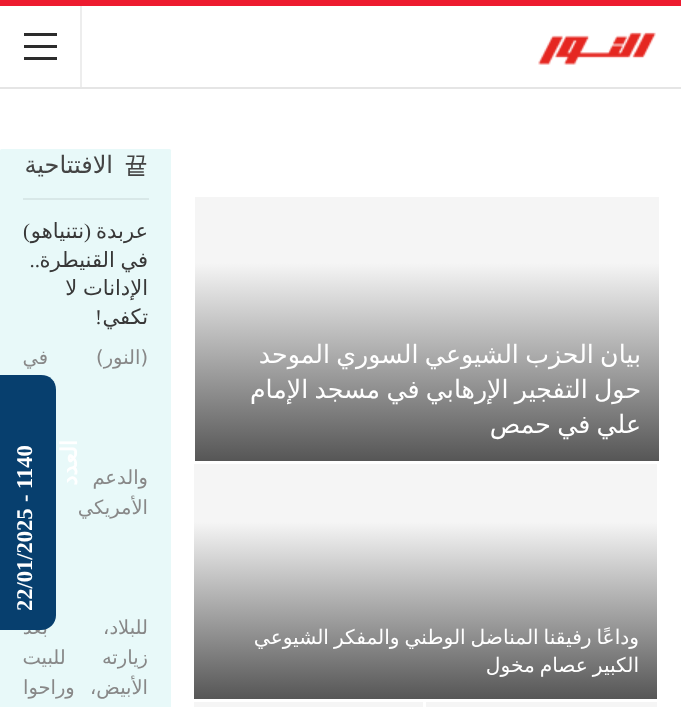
async function draw(canvas) {
  canvas.width = 681;
  canvas.height = 707;
  const ctx = canvas.getContext('2d');
  ctx.miterLimit = 4;
  ctx.fontKerning = 'normal';
  function label(s, x, y, font, color) {
    ctx.font = font;
    ctx.fillStyle = color;
    ctx.fillText(s, x, y);
  }
  function rect(x, y, w, h, color) {
    ctx.fillStyle = color;
    ctx.fillRect(x, y, w, h);
  }
  function roundedRect(x, y, w, h, r, color) {
    ctx.fillStyle = color;
    ctx.beginPath();
    ctx.roundRect(x, y, w, h, r);
    ctx.fill();
  }
  async function image(src, x, y, w, h) {
    const img = new Image();
    img.src = src;
    await img.decode();
    ctx.drawImage(img, x, y, w, h);
  }
  let gradient, path;

  rect(0, 0, 681, 707, '#ed1b2f');
  rect(0, 6, 681, 701, '#fff');
  rect(0, 87, 681, 2, '#e5e5e5');
  await image('assets/img1.png', 538, 32, 118, 33);
  rect(80, 6, 2, 81, '#ededed');
  rect(24, 45, 33, 3, '#2c2c2c');
  rect(24, 33, 33, 3, '#2c2c2c');
  rect(24, 57, 33, 3, '#2c2c2c');
  rect(195, 197, 464, 66, '#f5f5f5');
  gradient = ctx.createLinearGradient(427, 263, 427, 461);
  gradient.addColorStop(0, '#f5f5f5');
  gradient.addColorStop(1, '#565656');
  ctx.fillStyle = gradient;
  ctx.fillRect(195, 263, 464, 198);
  ctx.save();
  ctx.beginPath();
  ctx.rect(213, 338, 428, 105);
  ctx.clip();
  ctx.wordSpacing = '-1.75px';
  ctx.direction = 'rtl';
  label('بيان الحزب الشيوعي السوري الموحد', 641, 363, '25.25px DejaVu Sans', '#fff');
  label('حول التفجير الإرهابي في مسجد الإمام', 641, 398, '25.25px DejaVu Sans', '#fff');
  label('علي في حمص', 641, 433, '25.25px DejaVu Sans', '#fff');
  ctx.restore();
  rect(194, 464, 463, 58, '#f5f5f5');
  gradient = ctx.createLinearGradient(425, 522, 425, 699);
  gradient.addColorStop(0, '#f5f5f5');
  gradient.addColorStop(1, '#565656');
  ctx.fillStyle = gradient;
  ctx.fillRect(194, 522, 463, 177);
  ctx.save();
  ctx.beginPath();
  ctx.rect(212, 624, 427, 57);
  ctx.clip();
  ctx.wordSpacing = '-1.5px';
  ctx.direction = 'rtl';
  label('وداعًا رفيقنا المناضل الوطني والمفكر الشيوعي', 639, 644, '20.2px DejaVu Sans', '#fff');
  label('الكبير عصام مخول', 639, 672, '20.2px DejaVu Sans', '#fff');
  ctx.restore();
  rect(426, 702, 231, 5, '#f5f5f5');
  rect(194, 702, 229, 5, '#f5f5f5');
  roundedRect(0, 149, 171, 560, 1.5, '#e8f9f9');
  label('끁', 124, 173, '500 24px WenQuanYi Zen Hei', '#444');
  ctx.direction = 'rtl';
  label('الافتتاحية', 113, 173, '24px DejaVu Sans', '#444');
  rect(23, 198, 126, 2, '#d8e8e8');
  label('عربدة', 148, 238, '21px DejaVu Sans', '#383838');
  label('(', 91, 238, '21px Liberation Serif', '#383838');
  label(')', 30, 238, '21px Liberation Serif', '#383838');
  label('نتنياهو', 84, 238, '21px DejaVu Sans', '#383838');
  ctx.wordSpacing = '-1px';
  label('في القنيطرة', 148, 267, '21px DejaVu Sans', '#383838');
  ctx.wordSpacing = '0px';
  label('..', 40, 267, '21px Liberation Serif', '#383838');
  ctx.wordSpacing = '-1px';
  label('الإدانات لا', 148, 295, '21px DejaVu Sans', '#383838');
  ctx.wordSpacing = '0px';
  label('تكفي', 148, 324, '21px DejaVu Sans', '#383838');
  label('!', 102, 324, '21px Liberation Serif', '#383838');
  label('(النور)', 148, 364, '19.5px DejaVu Sans', '#888');
  label('في', 48, 364, '19.5px DejaVu Sans', '#888');
  label('والدعم', 148, 484, '19.5px DejaVu Sans', '#888');
  label('الأمريكي', 148, 514, '19.5px DejaVu Sans', '#888');
  ctx.wordSpacing = '49px';
  label('للبلاد، بعد', 148, 634, '19.5px DejaVu Sans', '#888');
  ctx.wordSpacing = '30px';
  label('زيارته للبيت', 148, 664, '19.5px DejaVu Sans', '#888');
  ctx.wordSpacing = '9px';
  label('الأبيض، وراحوا', 148, 694, '19.5px DejaVu Sans', '#888');
  ctx.fillStyle = '#073f6e';
  path = new Path2D('M-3 630V375H41C50 375 56 381 56 390V615C56 623 50 630 41 630Z');
  ctx.fill(path);
  ctx.wordSpacing = '0px';
  ctx.font = 'bold 22.5px DejaVu Sans';
  ctx.fillStyle = '#fff';
  ctx.save();
  ctx.translate(77, 440);
  ctx.rotate(-90 * Math.PI / 180);
  ctx.fillText('العدد', 0, 0);
  ctx.restore();
  ctx.direction = 'ltr';
  ctx.font = 'bold 22.5px Liberation Serif';
  ctx.save();
  ctx.translate(32, 489);
  ctx.rotate(-90 * Math.PI / 180);
  ctx.fillText('1140', 0, 0);
  ctx.restore();
  ctx.save();
  ctx.translate(32, 502);
  ctx.rotate(-90 * Math.PI / 180);
  ctx.fillText('-', 0, 0);
  ctx.restore();
  ctx.save();
  ctx.translate(32, 611);
  ctx.rotate(-90 * Math.PI / 180);
  ctx.fillText('22/01/2025', 0, 0);
  ctx.restore();
}

draw(document.querySelector('canvas'));
